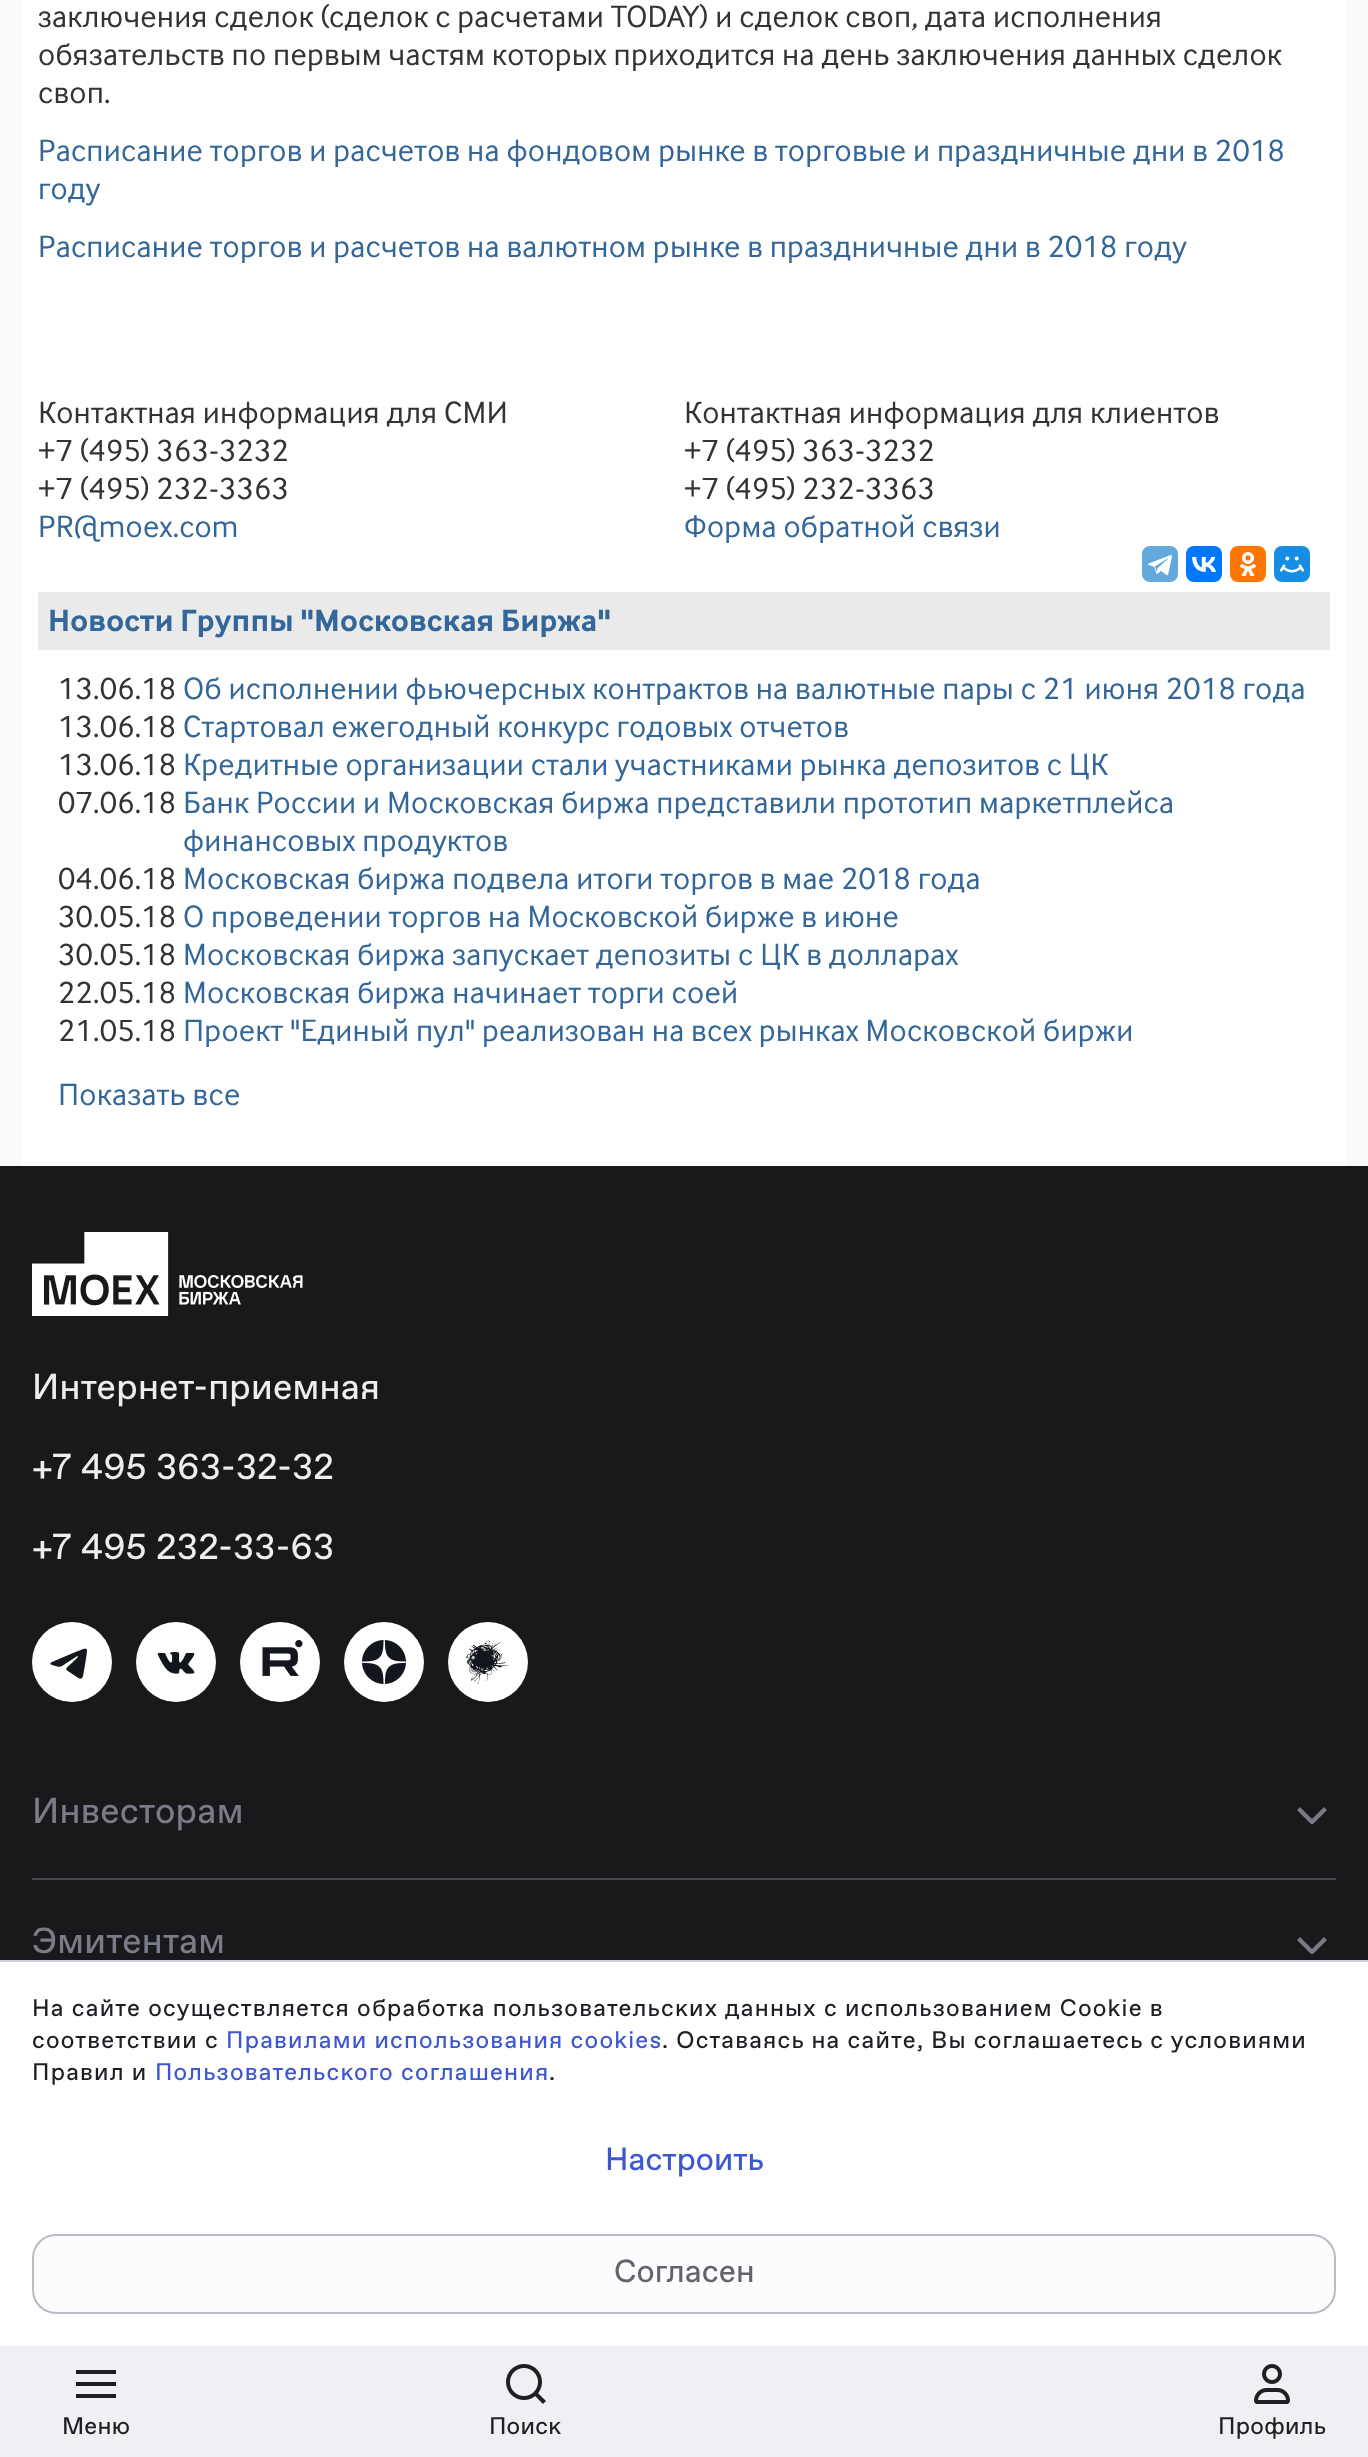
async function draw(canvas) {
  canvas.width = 1368;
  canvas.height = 2457;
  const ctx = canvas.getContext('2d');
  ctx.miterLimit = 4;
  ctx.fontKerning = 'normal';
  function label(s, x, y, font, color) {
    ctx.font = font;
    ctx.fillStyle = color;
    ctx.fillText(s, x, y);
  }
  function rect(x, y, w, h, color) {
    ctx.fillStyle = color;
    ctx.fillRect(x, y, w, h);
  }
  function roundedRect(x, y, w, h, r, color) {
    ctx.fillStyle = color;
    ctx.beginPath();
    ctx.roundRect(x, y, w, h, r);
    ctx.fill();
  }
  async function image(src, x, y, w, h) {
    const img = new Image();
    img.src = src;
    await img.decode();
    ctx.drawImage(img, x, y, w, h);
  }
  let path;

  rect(0, 0, 1368, 2457, '#fafafa');
  rect(22, 0, 1324, 1166, '#fff');
  ctx.letterSpacing = '0.25px';
  label('заключения сделок (сделок с расчетами TODAY) и сделок своп, дата исполнения', 38, 27, '32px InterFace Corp', '#333');
  label('обязательств по первым частям которых приходится на день заключения данных сделок', 38, 65, '32px InterFace Corp', '#333');
  label('своп.', 38, 103, '32px InterFace Corp', '#333');
  label('Расписание торгов и расчетов на фондовом рынке в торговые и праздничные дни в 2018', 38, 161, '32px InterFace Corp', '#369');
  label('году', 38, 199, '32px InterFace Corp', '#369');
  label('Расписание торгов и расчетов на валютном рынке в праздничные дни в 2018 году', 38, 257, '32px InterFace Corp', '#369');
  label('Контактная информация для СМИ', 38, 423, '32px InterFace Corp', '#333');
  label('+7 (495) 363-3232', 38, 461, '32px InterFace Corp', '#333');
  label('+7 (495) 232-3363', 38, 499, '32px InterFace Corp', '#333');
  label('PR@moex.com', 38, 537, '32px InterFace Corp', '#369');
  label('Контактная информация для клиентов', 684, 423, '32px InterFace Corp', '#333');
  label('+7 (495) 363-3232', 684, 461, '32px InterFace Corp', '#333');
  label('+7 (495) 232-3363', 684, 499, '32px InterFace Corp', '#333');
  label('Форма обратной связи', 684, 537, '32px InterFace Corp', '#369');
  roundedRect(1142, 546, 36, 36, 8, '#64a9dc');
  await image('assets/img1.png', 1148, 555, 24, 21);
  roundedRect(1186, 546, 36, 36, 8, '#07f');
  await image('assets/img2.png', 1192, 556, 24, 16);
  roundedRect(1230, 546, 36, 36, 8, '#f70');
  await image('assets/img3.png', 1240, 552, 17, 24);
  roundedRect(1274, 546, 36, 36, 8, '#168de2');
  await image('assets/img4.png', 1280, 556, 24, 17);
  rect(38, 592, 1292, 58, '#eaeaea');
  label('Новости Группы "Московская Биржа"', 48, 631, 'bold 32px InterFace Corp', '#369');
  label('13.06.18', 58, 699, '32px InterFace Corp', '#333');
  label('Об исполнении фьючерсных контрактов на валютные пары с 21 июня 2018 года', 183, 699, '32px InterFace Corp', '#369');
  label('13.06.18', 58, 737, '32px InterFace Corp', '#333');
  label('Стартовал ежегодный конкурс годовых отчетов', 183, 737, '32px InterFace Corp', '#369');
  label('13.06.18', 58, 775, '32px InterFace Corp', '#333');
  label('Кредитные организации стали участниками рынка депозитов с ЦК', 183, 775, '32px InterFace Corp', '#369');
  label('07.06.18', 58, 813, '32px InterFace Corp', '#333');
  label('Банк России и Московская биржа представили прототип маркетплейса', 183, 813, '32px InterFace Corp', '#369');
  label('финансовых продуктов', 183, 851, '32px InterFace Corp', '#369');
  label('04.06.18', 58, 889, '32px InterFace Corp', '#333');
  label('Московская биржа подвела итоги торгов в мае 2018 года', 183, 889, '32px InterFace Corp', '#369');
  label('30.05.18', 58, 927, '32px InterFace Corp', '#333');
  label('О проведении торгов на Московской бирже в июне', 183, 927, '32px InterFace Corp', '#369');
  label('30.05.18', 58, 965, '32px InterFace Corp', '#333');
  label('Московская биржа запускает депозиты с ЦК в долларах', 183, 965, '32px InterFace Corp', '#369');
  label('22.05.18', 58, 1003, '32px InterFace Corp', '#333');
  label('Московская биржа начинает торги соей', 183, 1003, '32px InterFace Corp', '#369');
  label('21.05.18', 58, 1041, '32px InterFace Corp', '#333');
  label('Проект "Единый пул" реализован на всех рынках Московской биржи', 183, 1041, '32px InterFace Corp', '#369');
  label('Показать все', 58, 1105, '32px InterFace Corp', '#369');
  rect(0, 1166, 1368, 794, '#19191b');
  await image('assets/img5.png', 32, 1232, 271, 84);
  label('Интернет-приемная', 32, 1399, '36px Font', '#eeeef0');
  label('+7 495 363-32-32', 32, 1479, '36px Font', '#eeeef0');
  label('+7 495 232-33-63', 32, 1559, '36px Font', '#eeeef0');
  ctx.fillStyle = '#fff';
  ctx.beginPath();
  ctx.arc(72, 1662, 40, 0, 2 * Math.PI);
  ctx.fill();
  await image('assets/img6.png', 50, 1648, 37, 31);
  ctx.beginPath();
  ctx.arc(176, 1662, 40, 0, 2 * Math.PI);
  ctx.fill();
  await image('assets/img7.png', 157, 1652, 38, 22);
  ctx.beginPath();
  ctx.arc(280, 1662, 40, 0, 2 * Math.PI);
  ctx.fill();
  await image('assets/img8.png', 262, 1640, 41, 36);
  ctx.beginPath();
  ctx.arc(384, 1662, 40, 0, 2 * Math.PI);
  ctx.fill();
  await image('assets/img9.png', 362, 1640, 44, 44);
  ctx.beginPath();
  ctx.arc(488, 1662, 40, 0, 2 * Math.PI);
  ctx.fill();
  await image('assets/img10.png', 466, 1640, 43, 44);
  label('Инвесторам', 32, 1823, '36px Font', '#797b86');
  path = new Path2D('M1298.5 1811.5L1308.5 1821.5C1312 1825 1312 1825 1315.5 1821.5L1327 1810L1324 1807L1312 1819L1300 1807L1297 1810Z');
  ctx.fill(path, 'evenodd');
  rect(32, 1878, 1304, 2, '#46484f');
  label('Эмитентам', 32, 1953, '36px Font', '#797b86');
  path = new Path2D('M1298.5 1941.5L1308.5 1951.5C1312 1955 1312 1955 1315.5 1951.5L1327 1940L1324 1937L1312 1949L1300 1937L1297 1940Z');
  ctx.fill(path, 'evenodd');
  rect(0, 2346, 1368, 111, '#eff0f3');
  ctx.fillStyle = '#1e1f24';
  path = new Path2D('M116 2374H76V2370H116ZM76 2386H116V2382H76ZM78 2398H116V2394H76V2398Z');
  ctx.fill(path, 'evenodd');
  label('Меню', 62, 2434, '24px Font', '#1e1f24');
  await image('assets/img11.png', 506, 2364, 40, 40);
  label('Поиск', 489, 2434, '24px Font', '#1e1f24');
  await image('assets/img12.png', 1254, 2364, 36, 40);
  label('Профиль', 1218, 2434, '24px Font', '#1e1f24');
  rect(0, 1962, 1368, 384, '#fff');
  rect(0, 1960, 1368, 2, '#cdced7');
  ctx.letterSpacing = '1.2px';
  label('На сайте осуществляется обработка пользовательских данных с использованием Cookie в', 32, 2016, '24px Font', '#1e1f24');
  label('соответствии с', 32, 2048, '24px Font', '#1e1f24');
  label('Правилами использования cookies', 226, 2048, '24px Font', '#3d57d0');
  label('. Оставаясь на сайте, Вы соглашаетесь с условиями', 662, 2048, '24px Font', '#1e1f24');
  label('Правил и', 32, 2080, '24px Font', '#1e1f24');
  label('Пользовательского соглашения', 155, 2080, '24px Font', '#3d57d0');
  label('.', 549, 2080, '24px Font', '#1e1f24');
  ctx.letterSpacing = '0px';
  label('Настроить', 605, 2170, '32px Font', '#3d57d0');
  ctx.fillStyle = '#fcfcfd';
  ctx.beginPath();
  ctx.roundRect(33, 2235, 1302, 78, 23);
  ctx.fill();
  ctx.strokeStyle = '#b9bbc6';
  ctx.lineWidth = 2;
  ctx.stroke();
  label('Согласен', 614, 2282, '32px Font', '#62636c');
}

draw(document.querySelector('canvas'));
